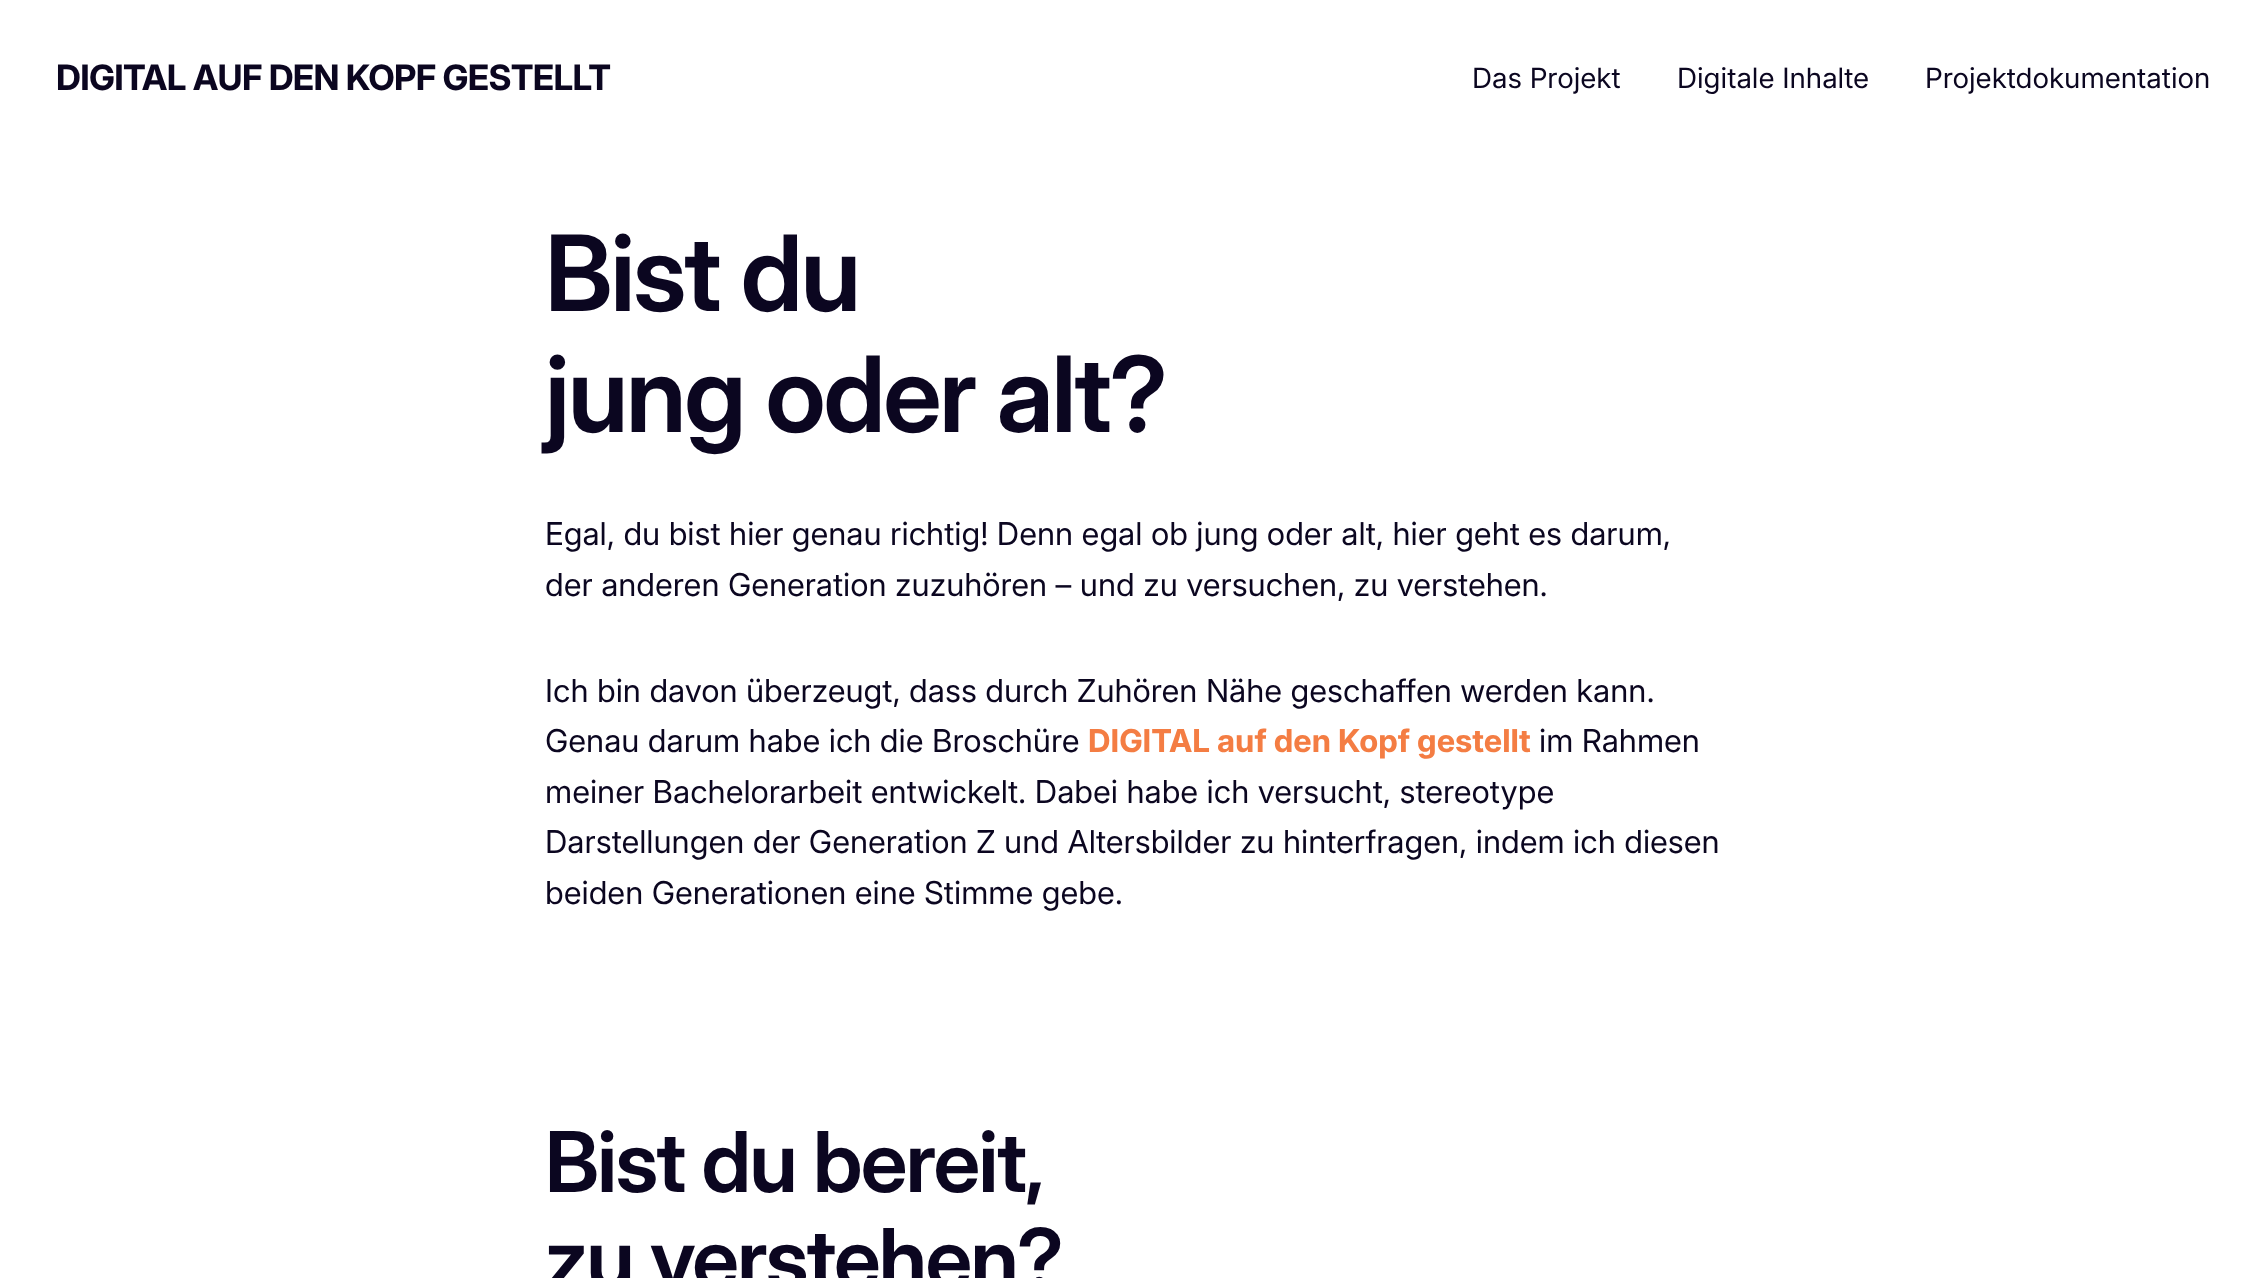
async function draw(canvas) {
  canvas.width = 2266;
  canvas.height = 1278;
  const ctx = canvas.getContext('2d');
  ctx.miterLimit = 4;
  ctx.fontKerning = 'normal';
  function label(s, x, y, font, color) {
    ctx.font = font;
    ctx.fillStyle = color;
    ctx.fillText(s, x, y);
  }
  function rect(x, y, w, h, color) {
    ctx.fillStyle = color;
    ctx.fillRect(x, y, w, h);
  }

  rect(0, 0, 2266, 1278, '#fff');
  ctx.letterSpacing = '-0.7px';
  label('DIGITAL AUF DEN KOPF GESTELLT', 56, 90, 'bold 35px "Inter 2"', '#0b0620');
  ctx.letterSpacing = '0px';
  label('Das Projekt', 1472, 88, '28px "Inter 2"', '#0b0620');
  label('Digitale Inhalte', 1677, 88, '28px "Inter 2"', '#0b0620');
  label('Projektdokumentation', 1925, 88, '28px "Inter 2"', '#0b0620');
  ctx.letterSpacing = '-2.1px';
  label('Bist du', 545, 311, '600 105px Inter', '#0b0620');
  label('jung oder alt?', 545, 432, '600 105px Inter', '#0b0620');
  ctx.letterSpacing = '0px';
  label('Egal, du bist hier genau richtig! Denn egal ob jung oder alt, hier geht es darum,', 545, 545, '31.5px Inter', '#0b0620');
  label('der anderen Generation zuzuhören – und zu versuchen, zu verstehen.', 545, 596, '31.5px Inter', '#0b0620');
  label('Ich bin davon überzeugt, dass durch Zuhören Nähe geschaffen werden kann.', 545, 702, '31.5px Inter', '#0b0620');
  label('Genau darum habe ich die Broschüre', 545, 752, '31.5px Inter', '#0b0620');
  label('DIGITAL auf den Kopf gestellt', 1088, 752, 'bold 31.5px Inter', '#f47d43');
  label('im Rahmen', 1539, 752, '31.5px Inter', '#0b0620');
  label('meiner Bachelorarbeit entwickelt. Dabei habe ich versucht, stereotype', 545, 803, '31.5px Inter', '#0b0620');
  label('Darstellungen der Generation Z und Altersbilder zu hinterfragen, indem ich diesen', 545, 853, '31.5px Inter', '#0b0620');
  label('beiden Generationen eine Stimme gebe.', 545, 904, '31.5px Inter', '#0b0620');
  ctx.letterSpacing = '-1.7px';
  label('Bist du bereit,', 545, 1192, '600 84px Inter', '#0b0620');
  label('zu verstehen?', 545, 1289, '600 84px Inter', '#0b0620');
}

draw(document.querySelector('canvas'));
